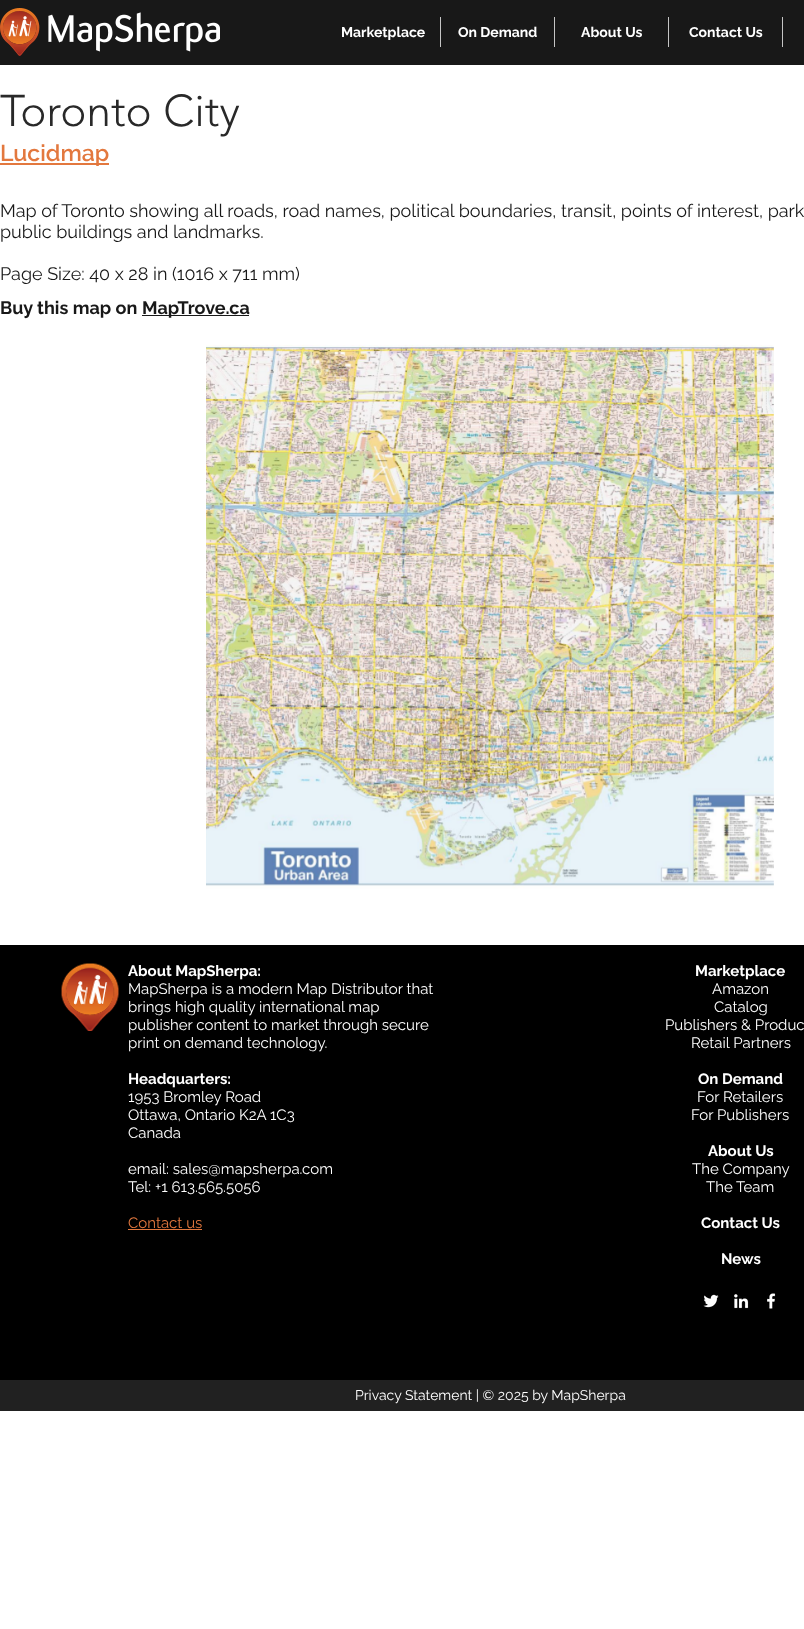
async function draw(canvas) {
  canvas.width = 804;
  canvas.height = 1629;
  const ctx = canvas.getContext('2d');
  ctx.miterLimit = 4;
  ctx.fontKerning = 'normal';
  function label(s, x, y, font, color) {
    ctx.font = font;
    ctx.fillStyle = color;
    ctx.fillText(s, x, y);
  }
  function rect(x, y, w, h, color) {
    ctx.fillStyle = color;
    ctx.fillRect(x, y, w, h);
  }
  async function image(src, x, y, w, h) {
    const img = new Image();
    img.src = src;
    await img.decode();
    ctx.drawImage(img, x, y, w, h);
  }

  rect(0, 0, 804, 1629, '#fff');
  rect(0, 0, 804, 65, '#181818');
  await image('assets/img1.png', 0, 8, 220, 48);
  label('Marketplace', 341, 37, 'bold 14px Raleway', '#fff');
  rect(440, 17, 1, 30, '#c5c5c5');
  label('On Demand', 458, 37, 'bold 14px Raleway', '#fff');
  rect(554, 17, 1, 30, '#c5c5c5');
  label('About Us', 581, 37, 'bold 14px Raleway', '#fff');
  rect(668, 17, 1, 30, '#c5c5c5');
  label('Contact Us', 689, 37, 'bold 14px Raleway', '#fff');
  rect(782, 17, 1, 30, '#c5c5c5');
  label('Toronto City', 0, 126, '300 44px "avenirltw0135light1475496"', '#292929');
  rect(0, 163, 109, 2, '#e3783e');
  label('Lucidmap', 0, 161, '600 23px Raleway', '#e3783e');
  label('Map of Toronto showing all roads, road names, political boundaries, transit, points of interest, park', 0, 217, '18px Raleway', '#181818');
  label('public buildings and landmarks.', 0, 238, '18px Raleway', '#181818');
  label('Page Size: 40 x 28 in (1016 x 711 mm)', 0, 280, '18px Raleway', '#181818');
  label('Buy this map on', 0, 314, 'bold 18px Raleway', '#181818');
  rect(142, 315, 107, 1, '#181818');
  label('MapTrove.ca', 142, 314, 'bold 18px Raleway', '#181818');
  await image('assets/img2.png', 206, 332, 568, 568);
  rect(0, 945, 804, 435, '#000');
  await image('assets/img3.png', 61, 963, 58, 68);
  label('About MapSherpa:', 128, 976, 'bold 15px Raleway', '#fff');
  label('MapSherpa is a modern Map Distributor that', 128, 994, '15px Raleway', '#fff');
  label('brings high quality international map', 128, 1012, '15px Raleway', '#fff');
  label('publisher content to market through secure', 128, 1030, '15px Raleway', '#fff');
  label('print on demand technology.', 128, 1048, '15px Raleway', '#fff');
  label('Headquarters:', 128, 1084, 'bold 15px Raleway', '#fff');
  label('1953 Bromley Road', 128, 1102, '15px Raleway', '#fff');
  label('Ottawa, Ontario K2A 1C3', 128, 1120, '15px Raleway', '#fff');
  label('Canada', 128, 1138, '15px Raleway', '#fff');
  label('email: sales@mapsherpa.com', 128, 1174, '15px Raleway', '#fff');
  label('Tel: +1 613.565.5056', 128, 1192, '15px Raleway', '#fff');
  label('Contact us', 128, 1228, '15px Raleway', '#e3783e');
  rect(128, 1229, 74, 1, '#e3783e');
  label('Marketplace', 695, 976, 'bold 15px Raleway', '#fff');
  label('Amazon', 712, 994, '15px Raleway', '#fff');
  label('Catalog', 714, 1012, '15px Raleway', '#fff');
  label('Publishers & Produc', 665, 1030, '15px Raleway', '#fff');
  label('Retail Partners', 691, 1048, '15px Raleway', '#fff');
  label('On Demand', 698, 1084, 'bold 15px Raleway', '#fff');
  label('For Retailers', 697, 1102, '15px Raleway', '#fff');
  label('For Publishers', 691, 1120, '15px Raleway', '#fff');
  label('About Us', 708, 1156, 'bold 15px Raleway', '#fff');
  label('The Company', 692, 1174, '15px Raleway', '#fff');
  label('The Team', 706, 1192, '15px Raleway', '#fff');
  label('Contact Us', 701, 1228, 'bold 15px Raleway', '#fff');
  label('News', 721, 1264, 'bold 15px Raleway', '#fff');
  await image('assets/img4.png', 703, 1294, 16, 14);
  await image('assets/img5.png', 734, 1294, 15, 15);
  await image('assets/img6.png', 767, 1293, 9, 16);
  rect(0, 1380, 804, 31, '#212121');
  label('Privacy Statement | © 2025 by MapSherpa', 355, 1400, '14px Raleway', '#fff');
}

draw(document.querySelector('canvas'));
